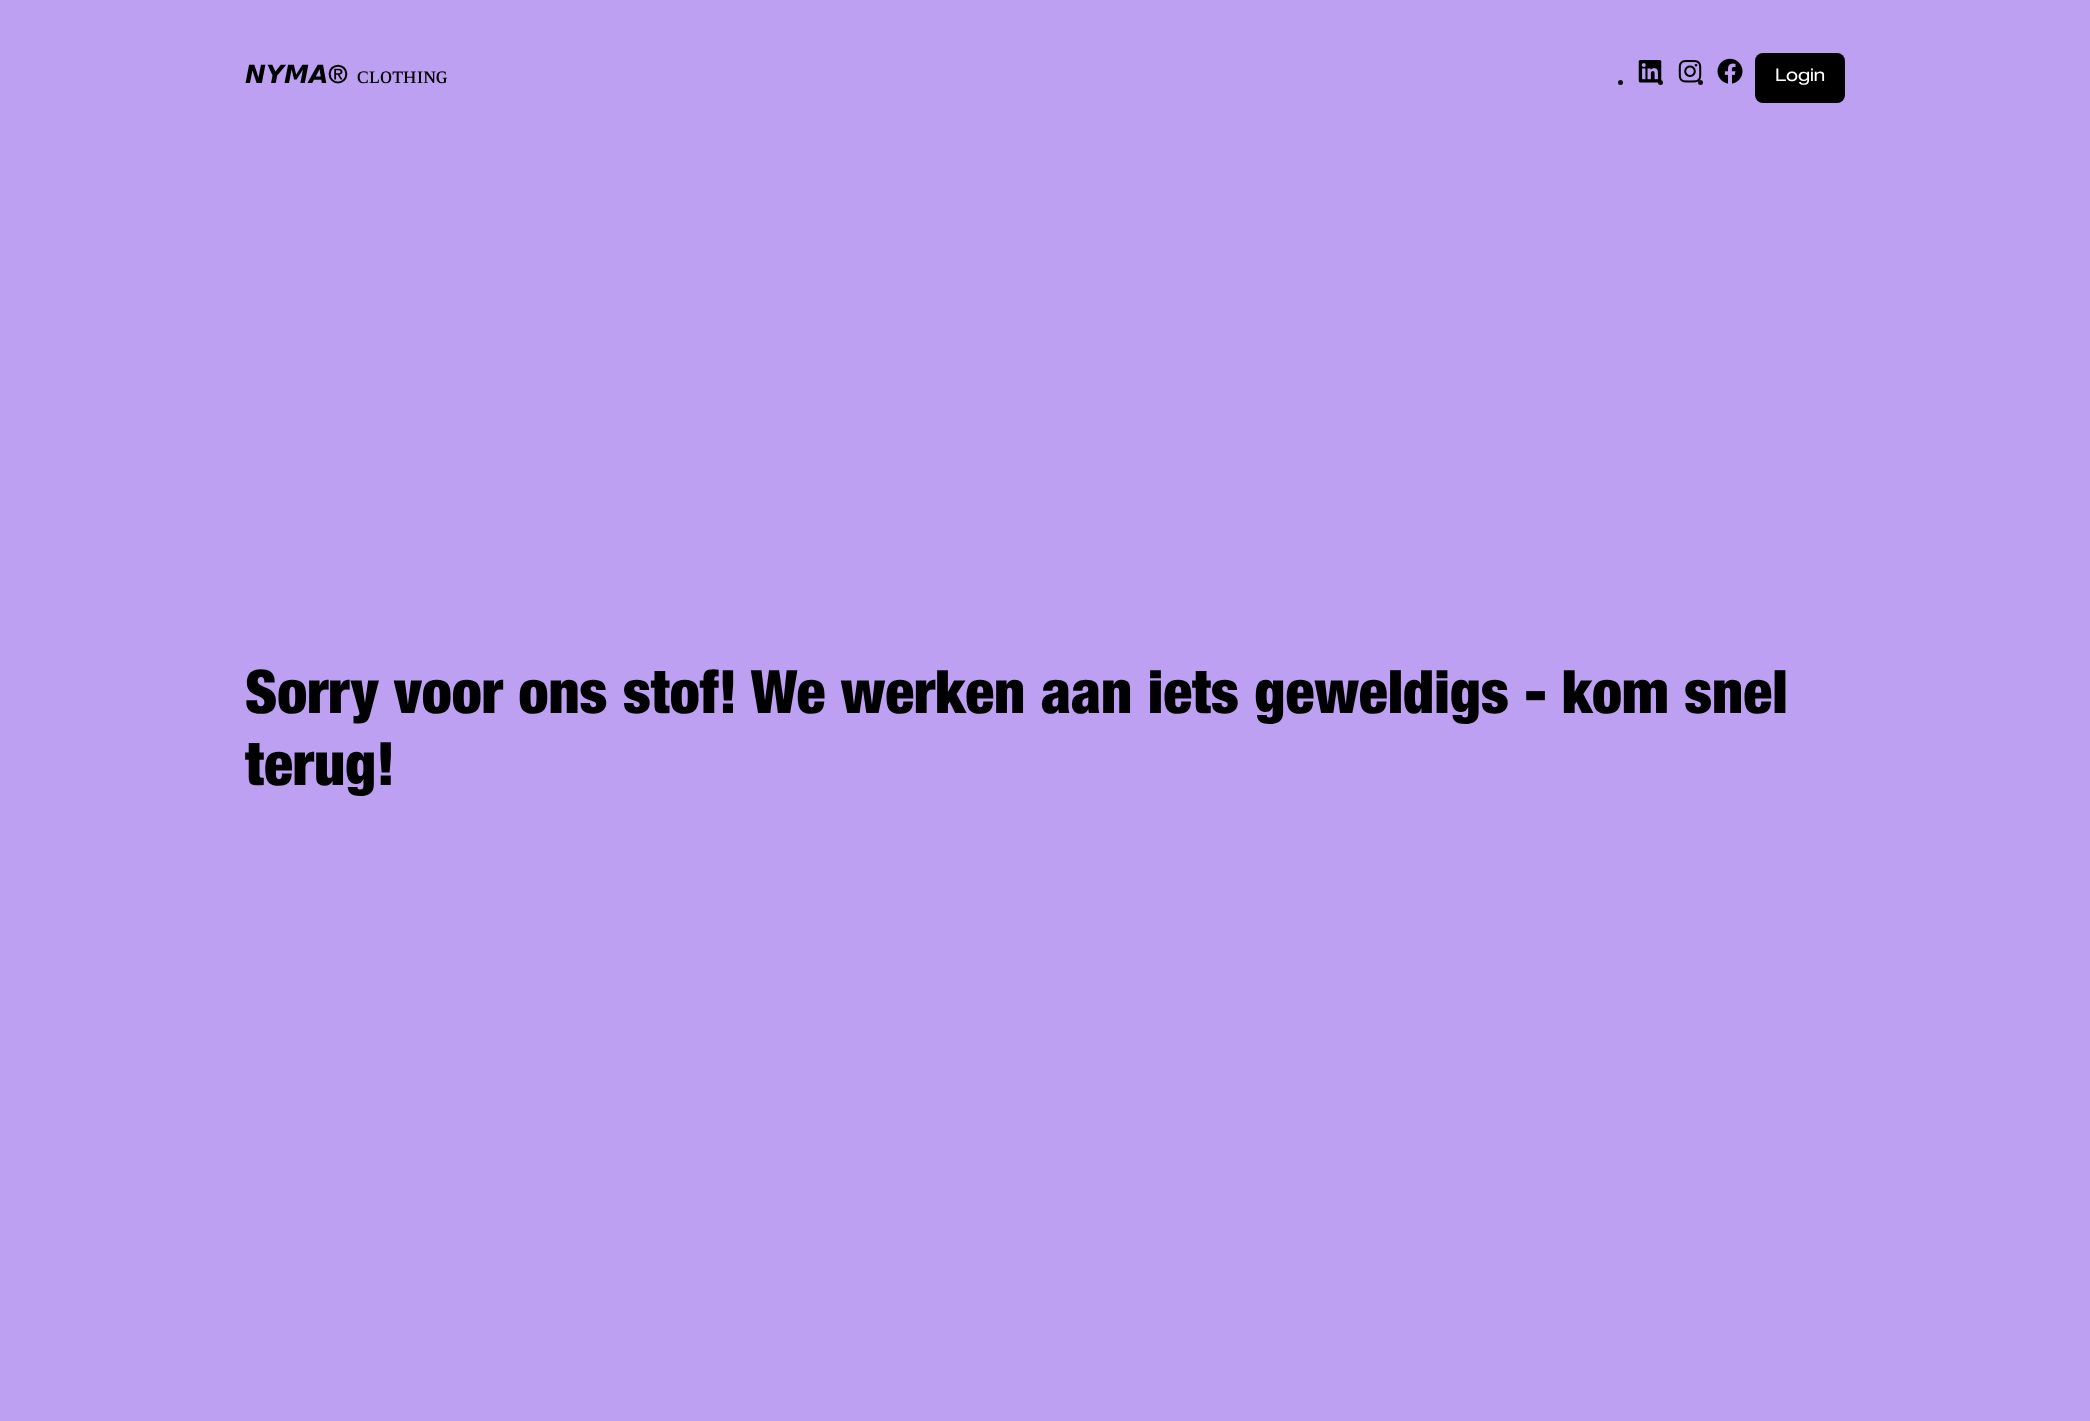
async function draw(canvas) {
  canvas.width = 2090;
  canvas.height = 1421;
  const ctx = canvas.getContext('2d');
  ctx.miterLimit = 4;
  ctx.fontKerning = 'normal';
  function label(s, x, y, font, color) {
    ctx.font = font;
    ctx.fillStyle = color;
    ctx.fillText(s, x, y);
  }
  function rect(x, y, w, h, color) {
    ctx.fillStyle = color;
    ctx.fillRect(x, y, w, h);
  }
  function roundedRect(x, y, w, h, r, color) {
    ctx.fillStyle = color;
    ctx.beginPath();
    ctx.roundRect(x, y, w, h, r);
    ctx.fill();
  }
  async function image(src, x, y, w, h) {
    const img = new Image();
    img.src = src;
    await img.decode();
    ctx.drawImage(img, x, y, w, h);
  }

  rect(0, 0, 2090, 1421, '#bea0f2');
  label('𝙉𝙔𝙈𝘼', 245, 83, 'italic bold 25px DejaVu Sans', '#000');
  label('®', 328, 83, '25px Helvetica Neue', '#000');
  label('ᴄʟᴏᴛʜɪɴɢ', 357, 83, '25px Liberation Serif', '#000');
  ctx.fillStyle = '#111';
  ctx.beginPath();
  ctx.arc(1620.5, 82.5, 2.5, 0, 2 * Math.PI);
  ctx.fill();
  ctx.beginPath();
  ctx.arc(1660.5, 82.5, 2.5, 0, 2 * Math.PI);
  ctx.fill();
  await image('assets/img1.png', 1638, 60, 24, 23);
  ctx.beginPath();
  ctx.arc(1700.5, 82.5, 2.5, 0, 2 * Math.PI);
  ctx.fill();
  await image('assets/img2.png', 1678, 60, 24, 23);
  await image('assets/img3.png', 1717, 58, 26, 26);
  roundedRect(1755, 53, 90, 50, 8, '#000');
  label('Login', 1775, 81, '17.5px Helvetica Neue', '#fff');
  label('Sorry voor ons stof! We werken aan iets geweldigs - kom snel', 245, 713, '900 60px Helvetica Neue', '#000');
  label('terug!', 245, 785, '900 60px Helvetica Neue', '#000');
}

draw(document.querySelector('canvas'));
